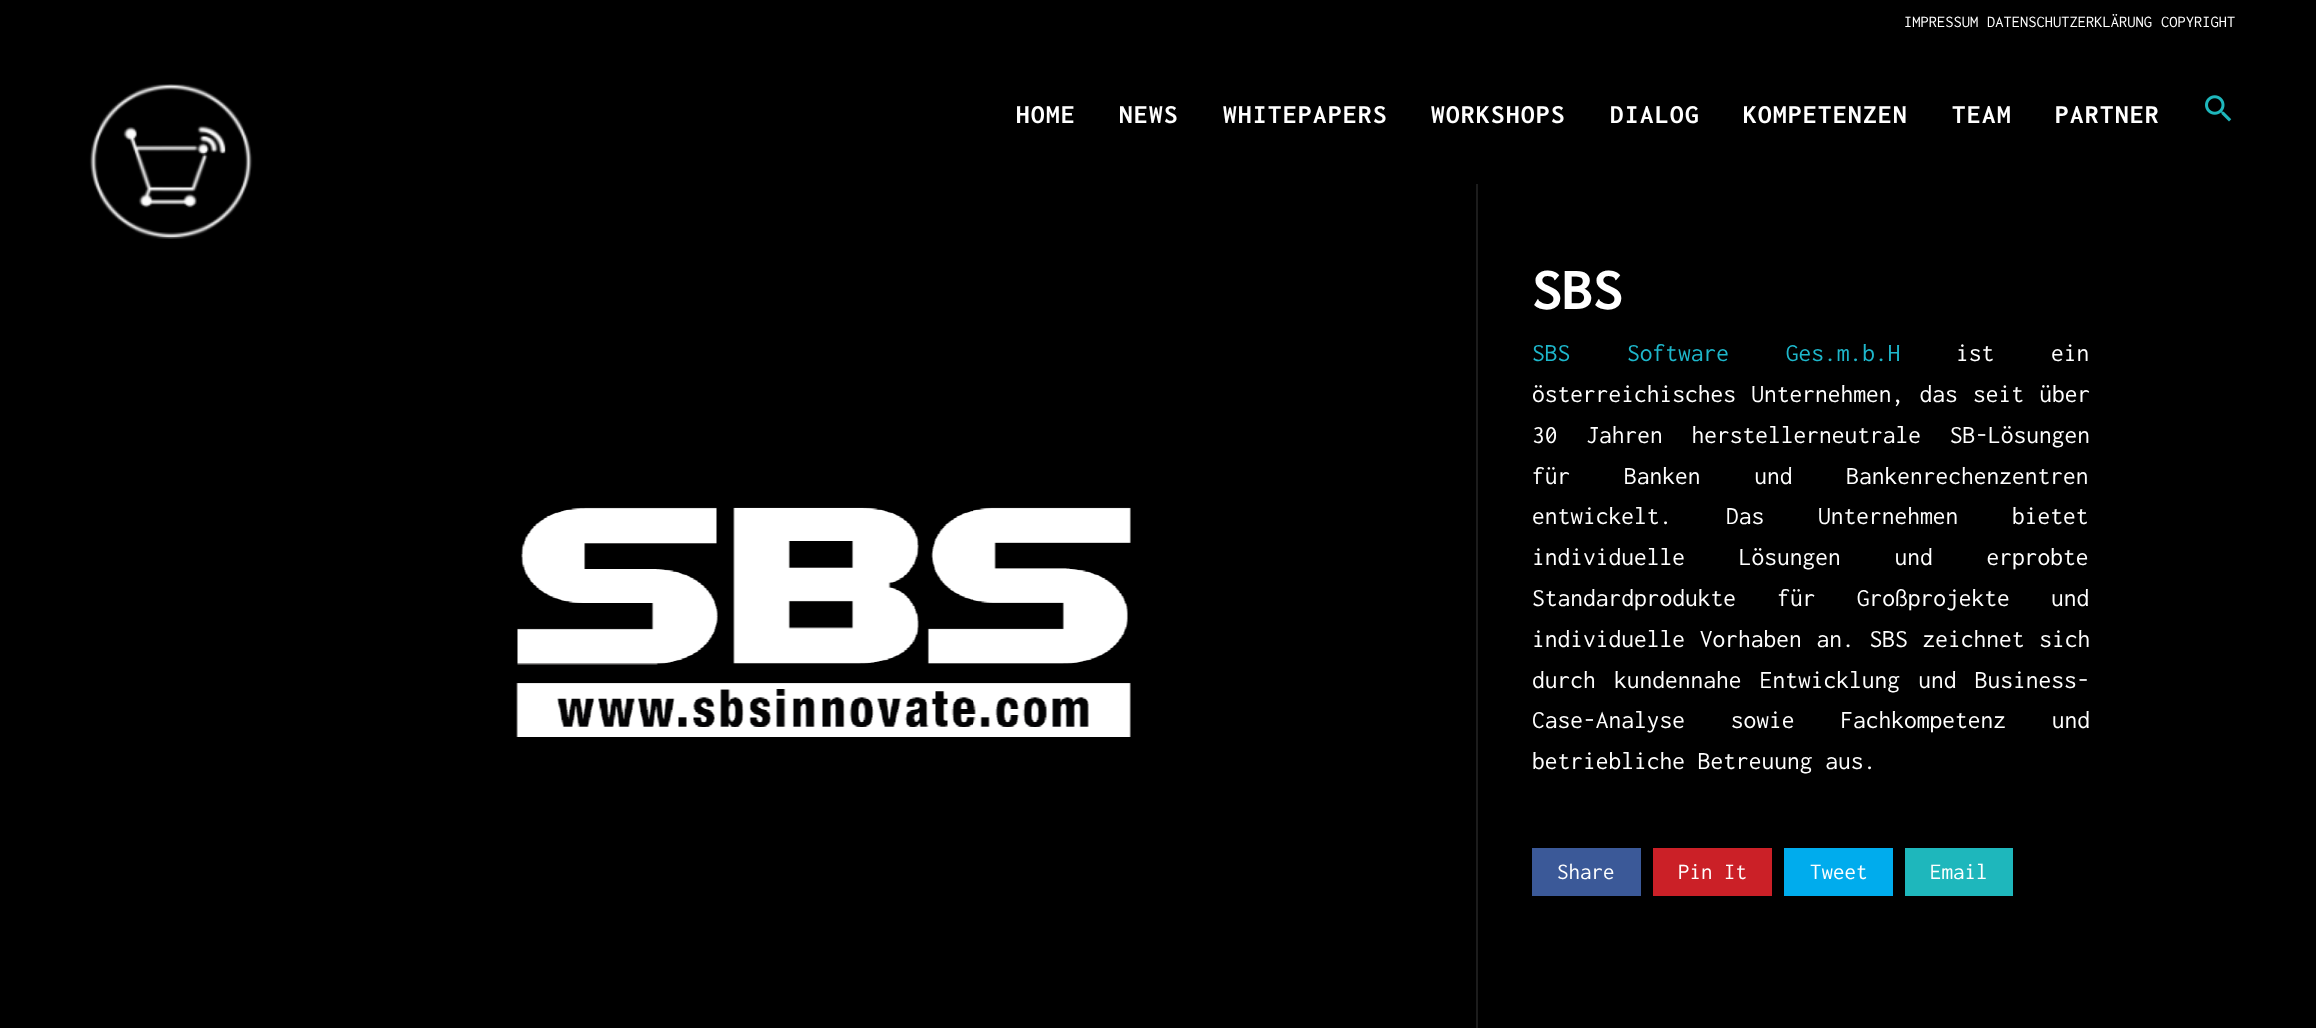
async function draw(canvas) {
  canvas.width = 2316;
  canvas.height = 1028;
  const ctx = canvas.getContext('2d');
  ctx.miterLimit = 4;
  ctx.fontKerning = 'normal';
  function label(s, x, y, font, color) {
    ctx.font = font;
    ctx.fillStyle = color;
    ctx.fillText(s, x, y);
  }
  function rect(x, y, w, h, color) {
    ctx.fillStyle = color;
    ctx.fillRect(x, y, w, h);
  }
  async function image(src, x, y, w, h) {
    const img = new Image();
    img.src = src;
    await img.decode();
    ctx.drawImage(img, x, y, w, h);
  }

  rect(0, 0, 2316, 1028, '#000');
  label('IMPRESSUM', 1904, 27, '16.5px Inconsolata', '#fff');
  label('DATENSCHUTZERKLÄRUNG', 1987, 27, '16.5px Inconsolata', '#fff');
  label('COPYRIGHT', 2161, 27, '16.5px Inconsolata', '#fff');
  await image('assets/img1.png', 89, 84, 164, 155);
  ctx.letterSpacing = '1.5px';
  label('HOME', 1016, 123, 'bold 27px Inconsolata', '#fff');
  label('NEWS', 1119, 123, 'bold 27px Inconsolata', '#fff');
  label('WHITEPAPERS', 1223, 123, 'bold 27px Inconsolata', '#fff');
  label('WORKSHOPS', 1431, 123, 'bold 27px Inconsolata', '#fff');
  label('DIALOG', 1610, 123, 'bold 27px Inconsolata', '#fff');
  label('KOMPETENZEN', 1743, 123, 'bold 27px Inconsolata', '#fff');
  label('TEAM', 1952, 123, 'bold 27px Inconsolata', '#fff');
  label('PARTNER', 2055, 123, 'bold 27px Inconsolata', '#fff');
  await image('assets/img2.png', 2205, 95, 27, 27);
  rect(1476, 183, 2, 845, '#1c1c1c');
  rect(1476, 183, 2, 1, '#000');
  await image('assets/img3.png', 516, 507, 615, 230);
  ctx.letterSpacing = '0px';
  label('SBS', 1532, 309, 'bold 61px Inconsolata', '#fff');
  ctx.wordSpacing = '44px';
  label('SBS Software Ges.m.b.H', 1532, 361, '25.5px Inconsolata', '#1eb7cb');
  label('ist ein', 1956, 361, '25.5px Inconsolata', '#fff');
  ctx.wordSpacing = '2.5px';
  label('österreichisches Unternehmen, das seit über', 1532, 402, '25.5px Inconsolata', '#fff');
  ctx.wordSpacing = '16px';
  label('30 Jahren herstellerneutrale SB-Lösungen', 1532, 443, '25.5px Inconsolata', '#fff');
  ctx.wordSpacing = '41px';
  label('für Banken und Bankenrechenzentren', 1532, 484, '25.5px Inconsolata', '#fff');
  label('entwickelt. Das Unternehmen bietet', 1532, 524, '25.5px Inconsolata', '#fff');
  label('individuelle Lösungen und erprobte', 1532, 565, '25.5px Inconsolata', '#fff');
  ctx.wordSpacing = '28.5px';
  label('Standardprodukte für Großprojekte und', 1532, 606, '25.5px Inconsolata', '#fff');
  ctx.wordSpacing = '2px';
  label('individuelle Vorhaben an. SBS zeichnet sich', 1532, 647, '25.5px Inconsolata', '#fff');
  ctx.wordSpacing = '5.5px';
  label('durch kundennahe Entwicklung und Business-', 1532, 688, '25.5px Inconsolata', '#fff');
  ctx.wordSpacing = '33px';
  label('Case-Analyse sowie Fachkompetenz und', 1532, 728, '25.5px Inconsolata', '#fff');
  ctx.wordSpacing = '0px';
  label('betriebliche Betreuung aus.', 1532, 769, '25.5px Inconsolata', '#fff');
  rect(1532, 848, 109, 48, '#3b5998');
  label('Share', 1557, 879, '23px Inconsolata', '#fff');
  rect(1653, 848, 119, 48, '#cb2027');
  label('Pin It', 1678, 879, '23px Inconsolata', '#fff');
  rect(1784, 848, 109, 48, '#00aced');
  label('Tweet', 1810, 879, '23px Inconsolata', '#fff');
  ctx.strokeStyle = '#1eb7bc';
  ctx.lineWidth = 2;
  ctx.strokeRect(1906, 849, 106, 46);
  rect(1907, 850, 104, 44, '#1eb7bc');
  label('Email', 1930, 879, '23px Inconsolata', '#fff');
}

draw(document.querySelector('canvas'));
